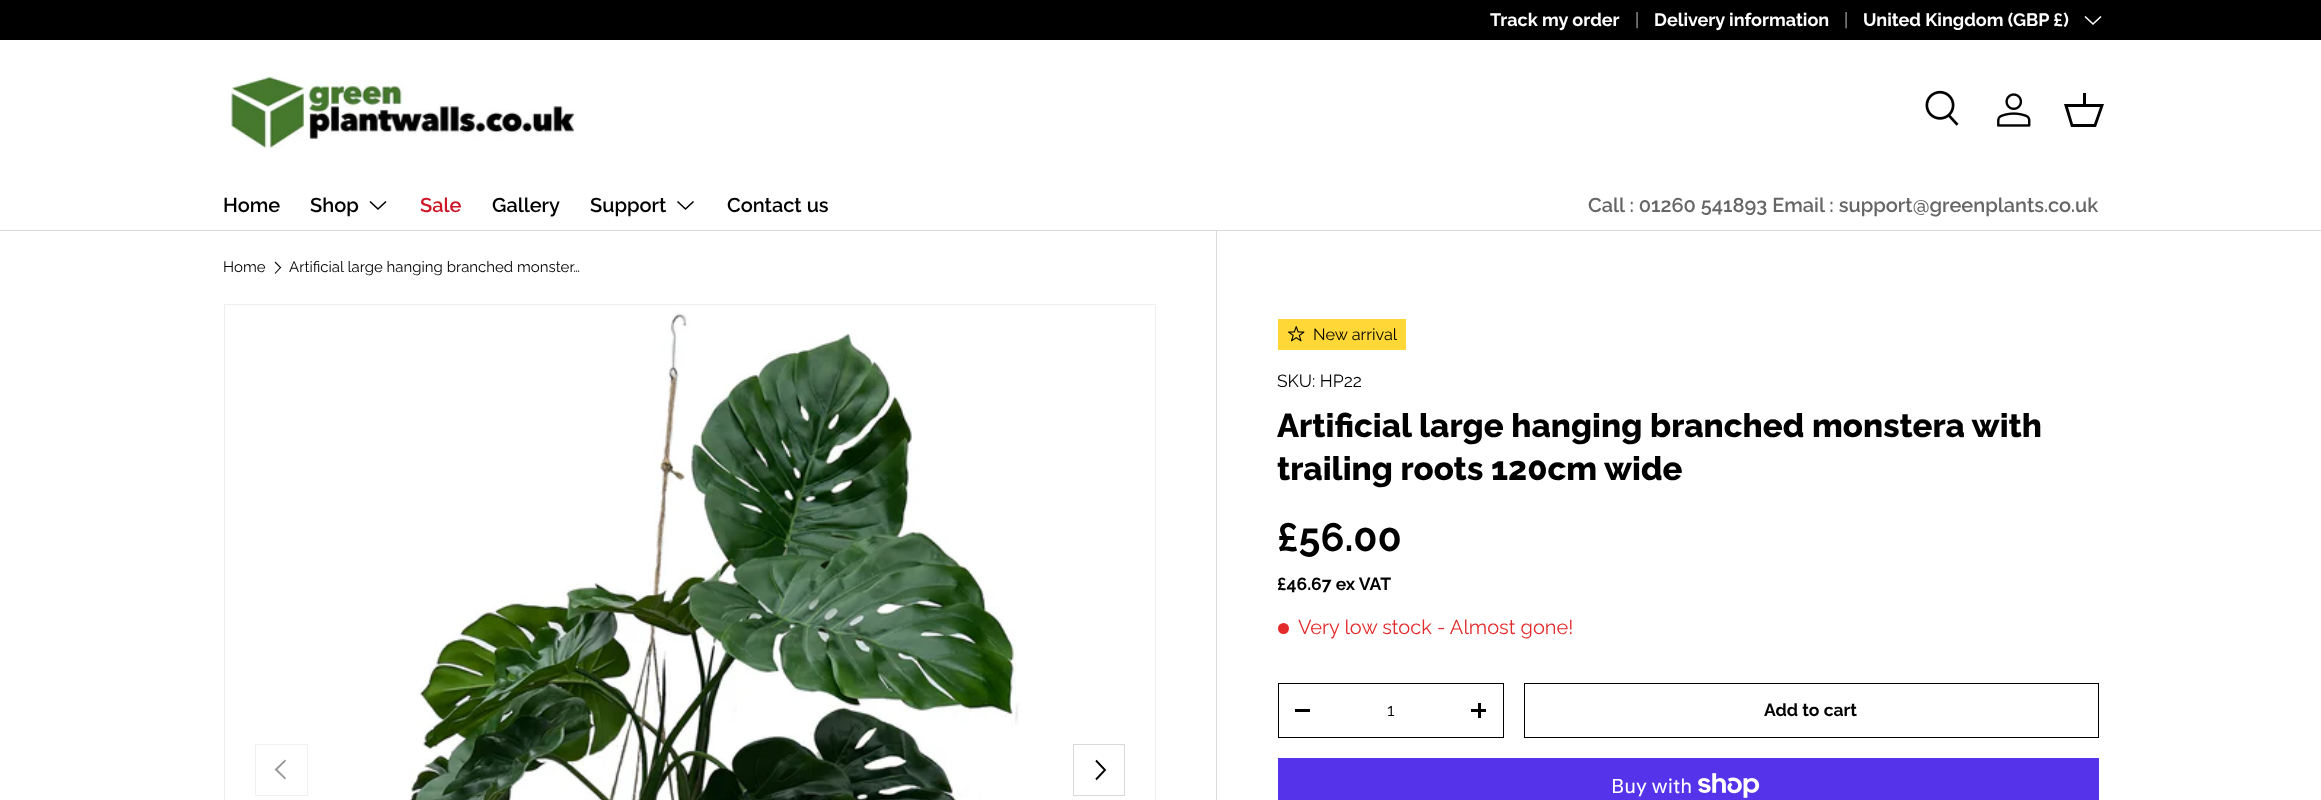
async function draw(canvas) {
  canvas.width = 2321;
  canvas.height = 800;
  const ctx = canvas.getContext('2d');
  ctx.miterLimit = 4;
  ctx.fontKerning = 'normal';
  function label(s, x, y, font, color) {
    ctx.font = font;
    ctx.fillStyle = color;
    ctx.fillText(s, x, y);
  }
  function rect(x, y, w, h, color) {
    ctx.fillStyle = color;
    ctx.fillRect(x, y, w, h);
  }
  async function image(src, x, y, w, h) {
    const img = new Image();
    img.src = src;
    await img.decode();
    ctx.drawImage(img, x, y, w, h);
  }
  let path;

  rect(0, 0, 2321, 800, '#fff');
  rect(0, 0, 2321, 40, '#000');
  label('Track my order', 1490, 26, 'bold 18px Raleway', '#fff');
  label('|', 1635, 26, '18px Raleway', '#b3b3b3');
  label('Delivery information', 1654, 26, 'bold 18px Raleway', '#fff');
  label('|', 1844, 26, '18px Raleway', '#b3b3b3');
  label('United Kingdom (GBP £)', 1863, 26, 'bold 18px Raleway', '#fff');
  path = new Path2D('M2101 16.5L2093 24L2085 16.5');
  ctx.strokeStyle = '#fff';
  ctx.lineWidth = 1.6;
  ctx.stroke(path);
  rect(0, 230, 2321, 1, '#d9d9d9');
  await image('assets/img1.png', 231, 76, 343, 74);
  await image('assets/img2.png', 1925, 90, 34, 36);
  await image('assets/img3.png', 1997, 93, 34, 34);
  ctx.fillStyle = '#000';
  path = new Path2D('M2083 104V93H2086V104H2104L2096 127H2071L2064 104ZM2068 107L2073 124H2094L2100 107Z');
  ctx.fill(path);
  label('Home', 223, 212, '600 20px Raleway', '#000');
  label('Shop', 310, 212, '600 20px Raleway', '#000');
  path = new Path2D('M386 201.5L378 209L370 201.5');
  ctx.strokeStyle = '#000';
  ctx.stroke(path);
  label('Sale', 420, 212, '600 20px Raleway', '#cd1526');
  label('Gallery', 492, 212, '600 20px Raleway', '#000');
  label('Support', 590, 212, '600 20px Raleway', '#000');
  path = new Path2D('M693.5 201.5L685.5 209L677.5 201.5');
  ctx.stroke(path);
  label('Contact us', 727, 212, '600 20px Raleway', '#000');
  label('Call : 01260 541893 Email : support@greenplants.co.uk', 1588, 212, '600 20px Raleway', '#666');
  label('Home', 223, 272, '15px Raleway', '#000');
  path = new Path2D('M275 262L280.5 267.5L275 273.5');
  ctx.lineWidth = 1.1;
  ctx.stroke(path);
  label('Artificial large hanging branched monster…', 289, 272, '15px Raleway', '#000');
  ctx.strokeStyle = '#eee';
  ctx.lineWidth = 1;
  ctx.strokeRect(224.5, 304.5, 931, 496);
  await image('assets/img4.png', 225, 305, 930, 495);
  ctx.strokeStyle = '#f0f0f0';
  ctx.strokeRect(255.5, 744.5, 52, 51);
  ctx.fillStyle = '#999';
  path = new Path2D('M274.5 769.5L285 759.5L286 761L277.5 769.5L286 778L285 779.5Z');
  ctx.fill(path);
  ctx.strokeStyle = '#d9d9d9';
  ctx.strokeRect(1073.5, 744.5, 51, 51);
  path = new Path2D('M1096 760.5L1105 770L1096 779.5');
  ctx.strokeStyle = '#000';
  ctx.lineWidth = 1.9;
  ctx.stroke(path);
  rect(1216, 231, 1, 569, '#d9d9d9');
  rect(1278, 319, 128, 31, '#ffd737');
  await image('assets/img5.png', 1288, 326, 17, 16);
  label('New arrival', 1313, 340, '16.25px Raleway', '#000');
  label('SKU: HP22', 1277, 387, '17.5px Raleway', '#000');
  label('Artificial large hanging branched monstera with', 1277, 437, '800 33px Raleway', '#000');
  label('trailing roots 120cm wide', 1277, 480, '800 33px Raleway', '#000');
  label('£56.00', 1277, 551, 'bold 39.5px Raleway', '#000');
  label('£46.67 ex VAT', 1277, 590, 'bold 17.5px Raleway', '#000');
  ctx.fillStyle = '#e32b2b';
  ctx.beginPath();
  ctx.arc(1283.5, 628.5, 5.5, 0, 2 * Math.PI);
  ctx.fill();
  label('Very low stock - Almost gone!', 1298, 634, '20px Raleway', '#e32b2b');
  ctx.lineWidth = 1;
  ctx.strokeRect(1278.5, 683.5, 225, 54);
  rect(1295, 709, 15, 3, '#000');
  label('1', 1387, 716, '17.5px Raleway', '#000');
  rect(1471, 709, 15, 3, '#000');
  rect(1478, 703, 3, 15, '#000');
  ctx.strokeRect(1524.5, 683.5, 574, 54);
  label('Add to cart', 1764, 716, 'bold 17.5px Raleway', '#000');
  rect(1278, 758, 821, 42, '#5433eb');
  label('Buy with', 1611, 793, '20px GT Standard', '#fff');
  await image('assets/img6.png', 1698, 773, 62, 25);
}

draw(document.querySelector('canvas'));
